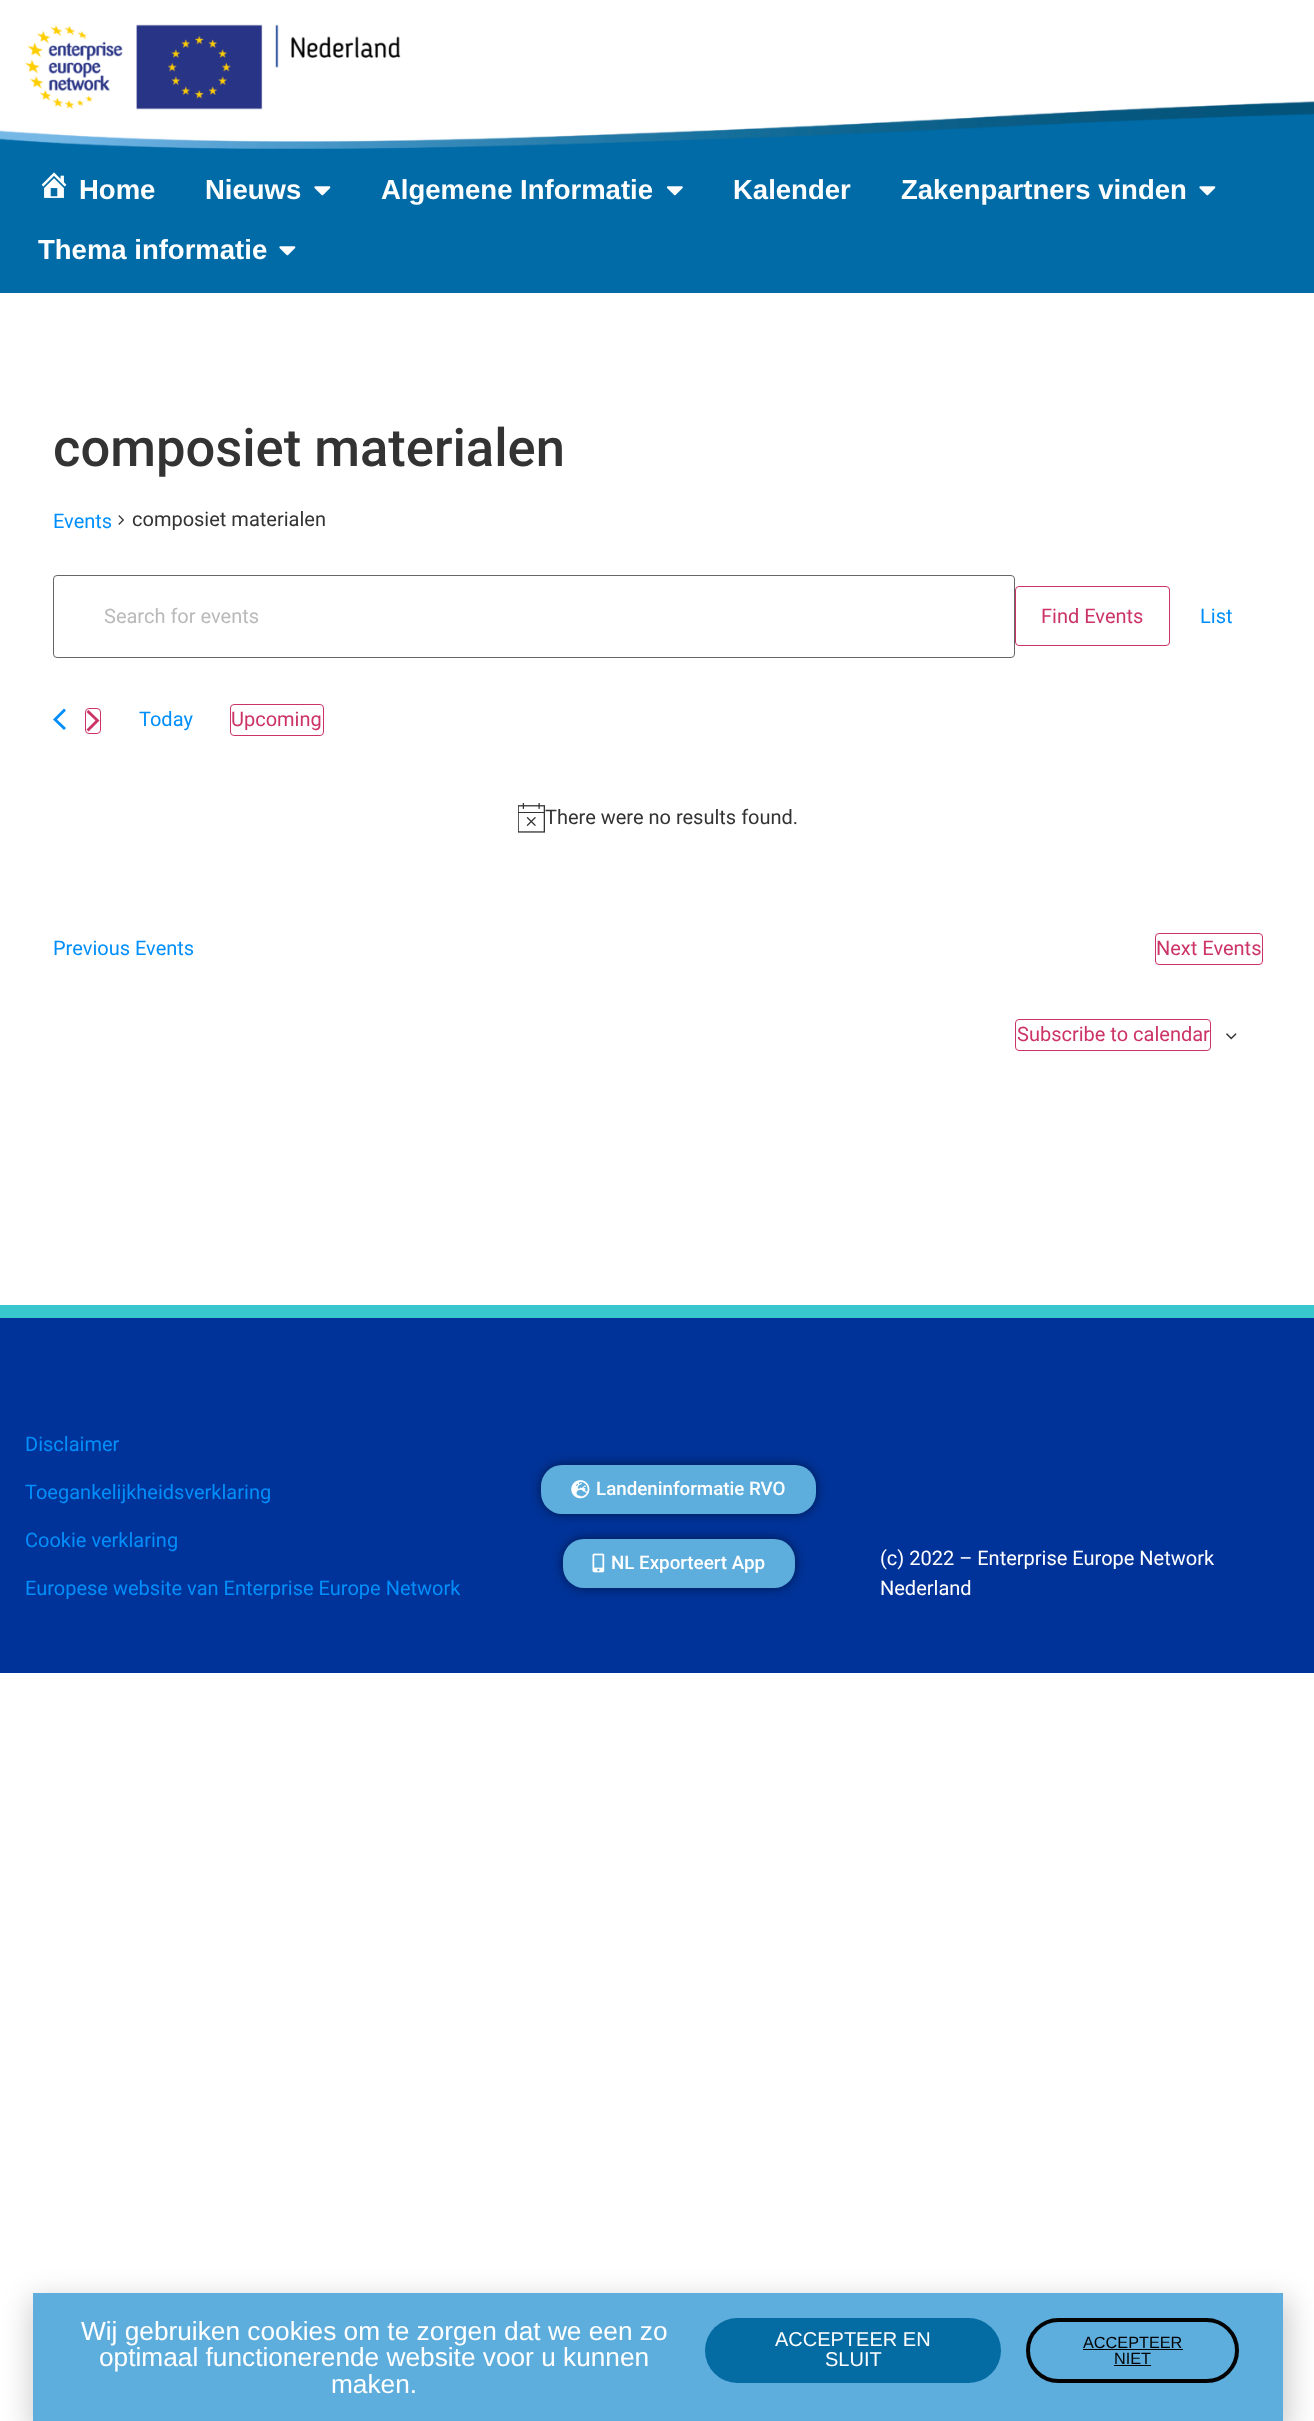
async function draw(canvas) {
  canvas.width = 1314;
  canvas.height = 2421;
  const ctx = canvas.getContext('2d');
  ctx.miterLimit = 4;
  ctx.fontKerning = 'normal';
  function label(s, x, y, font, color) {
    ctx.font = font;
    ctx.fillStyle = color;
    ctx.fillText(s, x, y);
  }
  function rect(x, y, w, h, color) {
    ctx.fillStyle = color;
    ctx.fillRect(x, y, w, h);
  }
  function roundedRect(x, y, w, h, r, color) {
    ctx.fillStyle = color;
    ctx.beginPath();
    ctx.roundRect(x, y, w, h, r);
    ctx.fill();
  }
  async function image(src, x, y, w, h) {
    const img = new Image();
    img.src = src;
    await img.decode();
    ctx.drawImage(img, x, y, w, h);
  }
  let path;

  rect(0, 0, 1314, 2421, '#fff');
  rect(0, 113, 1314, 180, '#006ba6');
  await image('assets/img1.png', 0, 0, 1314, 149);
  await image('assets/img2.png', 41, 172, 26, 26);
  label('Home', 79, 199, 'bold 27.5px Liberation Sans', '#fff');
  label('Nieuws', 205, 199, 'bold 27.5px Liberation Sans', '#fff');
  await image('assets/img3.png', 314, 186, 17, 10);
  label('Algemene Informatie', 381, 199, 'bold 27.5px Liberation Sans', '#fff');
  await image('assets/img4.png', 666, 186, 17, 10);
  label('Kalender', 733, 199, 'bold 27.5px Liberation Sans', '#fff');
  label('Zakenpartners vinden', 901, 199, 'bold 27.5px Liberation Sans', '#fff');
  await image('assets/img3.png', 1199, 186, 17, 10);
  label('Thema informatie', 38, 259, 'bold 27.5px Liberation Sans', '#fff');
  await image('assets/img3.png', 279, 246, 17, 10);
  label('composiet materialen', 53, 466, '500 52.5px Roboto', '#333');
  label('Events', 53, 528, '20px Roboto', '#008ffa');
  await image('assets/img5.png', 118, 515, 6, 10);
  label('composiet materialen', 132, 526, '20px Roboto', '#333');
  ctx.beginPath();
  ctx.roundRect(53.5, 575.5, 961, 82, 3.5);
  ctx.strokeStyle = '#666';
  ctx.stroke();
  label('Search for events', 104, 623, '20px Roboto', '#bababa');
  ctx.beginPath();
  ctx.roundRect(1015.5, 586.5, 154, 59, 3.5);
  ctx.strokeStyle = '#c36';
  ctx.stroke();
  label('Find Events', 1041, 623, '20px Roboto', '#c36');
  label('List', 1200, 623, '20px Roboto', '#008ffa');
  path = new Path2D('M66 728L64 730L53 719.5L64 708.5L66 710.5L57 719.5Z');
  ctx.fill(path);
  ctx.beginPath();
  ctx.roundRect(85.5, 708.5, 15, 25, 3.5);
  ctx.stroke();
  ctx.fillStyle = '#c36';
  path = new Path2D('M86.5 712L88.5 710L99.5 720.5L88.5 731.5L86.5 729.5L95.5 720.5Z');
  ctx.fill(path);
  label('Today', 139, 726, '20px Roboto', '#008ffa');
  ctx.beginPath();
  ctx.roundRect(230.5, 704.5, 93, 31, 3.5);
  ctx.stroke();
  label('Upcoming', 231, 726, '20px Roboto', '#c36');
  await image('assets/img6.png', 518, 803, 27, 30);
  label('There were no results found.', 545, 824, '20px Roboto', '#333');
  label('Previous Events', 53, 955, '20px Roboto', '#008ffa');
  ctx.beginPath();
  ctx.roundRect(1155.5, 933.5, 107, 31, 3.5);
  ctx.stroke();
  label('Next Events', 1156, 955, '20px Roboto', '#c36');
  ctx.beginPath();
  ctx.roundRect(1015.5, 1019.5, 195, 31, 3.5);
  ctx.stroke();
  label('Subscribe to calendar', 1017, 1041, '20px Roboto', '#c36');
  await image('assets/img7.png', 1226, 1033, 11, 7);
  rect(0, 1318, 1314, 355, '#039');
  rect(0, 1305, 1314, 13, '#39c7ce');
  label('Disclaimer', 25, 1451, '20px Roboto', '#008ffa');
  label('Toegankelijkheidsverklaring', 25, 1499, '20px Roboto', '#008ffa');
  label('Cookie verklaring', 25, 1547, '20px Roboto', '#008ffa');
  label('Europese website van Enterprise Europe Network', 25, 1595, '20px Roboto', '#008ffa');
  ctx.fillStyle = '#00000080';
  ctx.filter = 'blur(6px)';
  ctx.beginPath();
  ctx.roundRect(541, 1465, 275, 49, 21);
  ctx.fill();
  ctx.filter = 'none';
  roundedRect(541, 1465, 275, 49, 21, '#5daddd');
  await image('assets/img8.png', 571, 1480, 19, 19);
  label('Landeninformatie RVO', 596, 1495, '500 18.75px Roboto', '#fff');
  ctx.fillStyle = '#00000080';
  ctx.filter = 'blur(6px)';
  ctx.beginPath();
  ctx.roundRect(563, 1539, 232, 49, 21);
  ctx.fill();
  ctx.filter = 'none';
  roundedRect(563, 1539, 232, 49, 21, '#5daddd');
  await image('assets/img9.png', 592, 1553, 13, 20);
  label('NL Exporteert App', 611, 1569, '500 18.75px Roboto', '#fff');
  label('(c) 2022 – Enterprise Europe Network', 880, 1565, '20px Roboto', '#fff');
  label('Nederland', 880, 1595, '20px Roboto', '#fff');
  ctx.fillStyle = '#00000033';
  ctx.filter = 'blur(14.5px)';
  ctx.beginPath();
  ctx.rect(31, 2299, 1258, 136);
  ctx.fill();
  ctx.filter = 'none';
  rect(33, 2293, 1250, 128, '#5daddd');
  label('Wij gebruiken cookies om te zorgen dat we een zo', 81, 2340, '26.25px Liberation Sans', '#fff');
  label('optimaal functionerende website voor u kunnen', 99, 2366, '26.25px Liberation Sans', '#fff');
  label('maken.', 331, 2393, '26.25px Liberation Sans', '#fff');
  roundedRect(705, 2318, 296, 65, 32.5, '#046ca3');
  label('ACCEPTEER EN', 775, 2346, '20px Liberation Sans', '#fff');
  label('SLUIT', 825, 2366, '20px Liberation Sans', '#fff');
  ctx.beginPath();
  ctx.roundRect(1028, 2320, 209, 61, 30.5);
  ctx.strokeStyle = '#030303';
  ctx.lineWidth = 4;
  ctx.stroke();
  label('ACCEPTEER', 1083, 2348, '16.25px Liberation Sans', '#030303');
  rect(1083, 2349, 100, 1, '#030303');
  label('NIET', 1114, 2364, '16.25px Liberation Sans', '#030303');
  rect(1114, 2365, 37, 1, '#030303');
}

draw(document.querySelector('canvas'));
